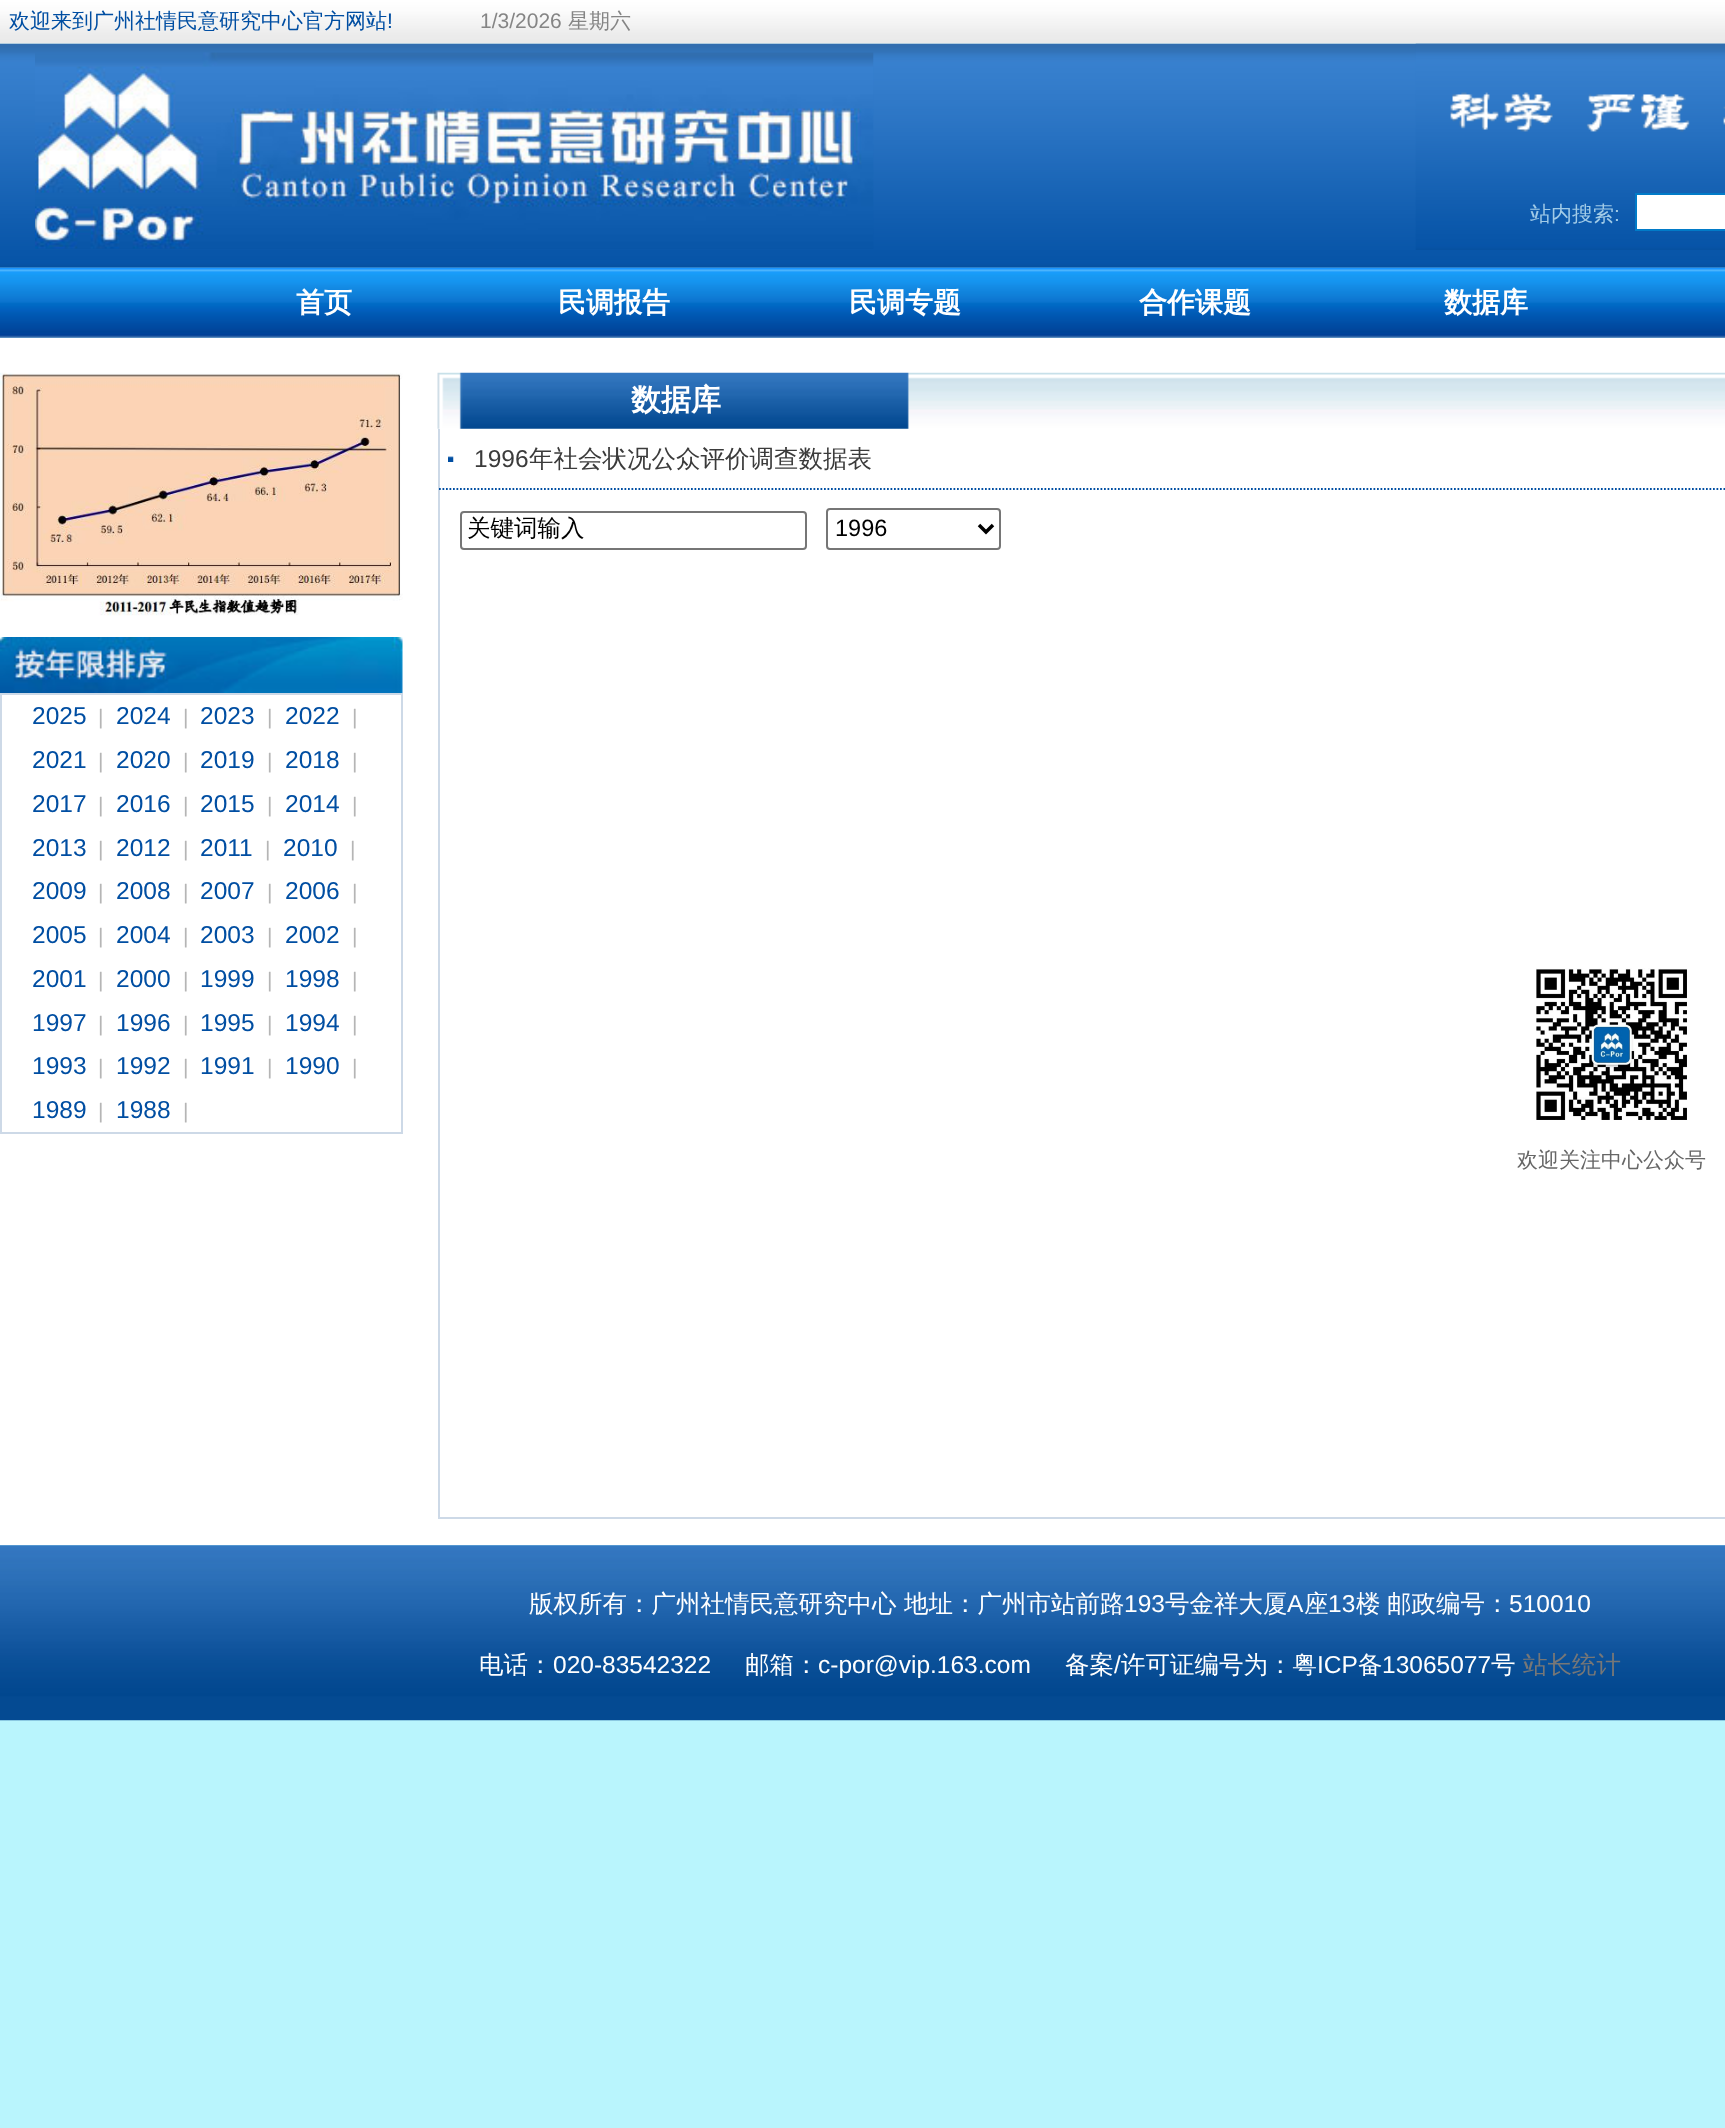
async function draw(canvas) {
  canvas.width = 1725;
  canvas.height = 2128;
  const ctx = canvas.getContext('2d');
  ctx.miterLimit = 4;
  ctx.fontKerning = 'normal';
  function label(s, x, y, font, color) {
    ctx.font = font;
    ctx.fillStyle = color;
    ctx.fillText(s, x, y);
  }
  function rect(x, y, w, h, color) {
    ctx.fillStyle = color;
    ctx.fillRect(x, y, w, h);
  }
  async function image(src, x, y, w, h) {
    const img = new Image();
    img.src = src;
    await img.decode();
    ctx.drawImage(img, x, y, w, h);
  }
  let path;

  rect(0, 0, 1725, 2128, '#b9f5fd');
  await image('assets/img1.png', 0, 0, 1725, 44);
  label('欢迎来到广州社情民意研究中心官方网站', 9, 28, '500 21px WenQuanYi Zen Hei', '#004ea2');
  label('!', 387, 28, '21px Liberation Sans', '#004ea2');
  label('1/3/2026', 480, 28, '21px Liberation Sans', '#858585');
  label('星期六', 568, 28, '500 21px WenQuanYi Zen Hei', '#858585');
  await image('assets/img2.png', 0, 43, 1725, 225);
  await image('assets/img3.png', 35, 52, 839, 197);
  await image('assets/img4.png', 1415, 43, 310, 207);
  label('站内搜索', 1530, 221, '500 21px WenQuanYi Zen Hei', '#a1cbe7');
  label(':', 1614, 221, '21px Liberation Sans', '#a1cbe7');
  ctx.fillStyle = '#fff';
  ctx.beginPath();
  ctx.rect(1636, 194, 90, 36);
  ctx.fill();
  ctx.strokeStyle = '#017bc8';
  ctx.lineWidth = 2;
  ctx.stroke();
  await image('assets/img5.png', 0, 267, 1725, 71);
  label('首页', 296, 312, 'bold 28px WenQuanYi Zen Hei', '#fff');
  label('民调报告', 558, 312, 'bold 28px WenQuanYi Zen Hei', '#fff');
  label('民调专题', 849, 312, 'bold 28px WenQuanYi Zen Hei', '#fff');
  label('合作课题', 1139, 312, 'bold 28px WenQuanYi Zen Hei', '#fff');
  label('数据库', 1444, 312, 'bold 28px WenQuanYi Zen Hei', '#fff');
  rect(0, 338, 1725, 1207, '#fff');
  await image('assets/img6.png', 437, 372, 1288, 57);
  label('数据库', 631, 410, 'bold 30px WenQuanYi Zen Hei', '#fff');
  rect(438, 1517, 1287, 2, '#cdd9e7');
  rect(438, 429, 2, 1090, '#cdd9e7');
  path = new Path2D('M439 489H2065');
  ctx.strokeStyle = '#004ea2';
  ctx.lineWidth = 1.8;
  ctx.setLineDash([1.75, 1.75]);
  ctx.stroke(path);
  await image('assets/img7.png', 448, 456, 6, 6);
  label('1996', 474, 467, '24.5px Liberation Sans', '#3b3b3b');
  label('年社会状况公众评价调查数据表', 529, 467, '500 24.5px WenQuanYi Zen Hei', '#3b3b3b');
  ctx.beginPath();
  ctx.roundRect(461, 512, 345, 37, 3);
  ctx.strokeStyle = '#767676';
  ctx.lineWidth = 2;
  ctx.setLineDash([]);
  ctx.stroke();
  label('关键词输入', 467, 536, '500 23.5px WenQuanYi Zen Hei', '#000');
  ctx.beginPath();
  ctx.roundRect(827, 509, 173, 40, 3);
  ctx.stroke();
  path = new Path2D('M979 525L986 532L993 525');
  ctx.strokeStyle = '#000';
  ctx.lineWidth = 3.5;
  ctx.stroke(path);
  label('1996', 835, 536, '23.5px Liberation Sans', '#000');
  await image('assets/img8.png', 0, 372, 403, 244);
  await image('assets/img9.png', 0, 637, 403, 56);
  ctx.strokeStyle = '#cdd9e7';
  ctx.lineWidth = 2;
  ctx.strokeRect(1, 694, 401, 439);
  label('2025', 32, 724, '24.5px Liberation Sans', '#004ea2');
  label('|', 98, 724, '21px Liberation Sans', '#b5b5b5');
  label('2024', 116, 724, '24.5px Liberation Sans', '#004ea2');
  label('|', 183, 724, '21px Liberation Sans', '#b5b5b5');
  label('2023', 200, 724, '24.5px Liberation Sans', '#004ea2');
  label('|', 267, 724, '21px Liberation Sans', '#b5b5b5');
  label('2022', 285, 724, '24.5px Liberation Sans', '#004ea2');
  label('|', 352, 724, '21px Liberation Sans', '#b5b5b5');
  label('2021', 32, 768, '24.5px Liberation Sans', '#004ea2');
  label('|', 98, 768, '21px Liberation Sans', '#b5b5b5');
  label('2020', 116, 768, '24.5px Liberation Sans', '#004ea2');
  label('|', 183, 768, '21px Liberation Sans', '#b5b5b5');
  label('2019', 200, 768, '24.5px Liberation Sans', '#004ea2');
  label('|', 267, 768, '21px Liberation Sans', '#b5b5b5');
  label('2018', 285, 768, '24.5px Liberation Sans', '#004ea2');
  label('|', 352, 768, '21px Liberation Sans', '#b5b5b5');
  label('2017', 32, 812, '24.5px Liberation Sans', '#004ea2');
  label('|', 98, 812, '21px Liberation Sans', '#b5b5b5');
  label('2016', 116, 812, '24.5px Liberation Sans', '#004ea2');
  label('|', 183, 812, '21px Liberation Sans', '#b5b5b5');
  label('2015', 200, 812, '24.5px Liberation Sans', '#004ea2');
  label('|', 267, 812, '21px Liberation Sans', '#b5b5b5');
  label('2014', 285, 812, '24.5px Liberation Sans', '#004ea2');
  label('|', 352, 812, '21px Liberation Sans', '#b5b5b5');
  label('2013', 32, 856, '24.5px Liberation Sans', '#004ea2');
  label('|', 98, 856, '21px Liberation Sans', '#b5b5b5');
  label('2012', 116, 856, '24.5px Liberation Sans', '#004ea2');
  label('|', 183, 856, '21px Liberation Sans', '#b5b5b5');
  label('2011', 200, 856, '24.5px Liberation Sans', '#004ea2');
  label('|', 265, 856, '21px Liberation Sans', '#b5b5b5');
  label('2010', 283, 856, '24.5px Liberation Sans', '#004ea2');
  label('|', 350, 856, '21px Liberation Sans', '#b5b5b5');
  label('2009', 32, 899, '24.5px Liberation Sans', '#004ea2');
  label('|', 98, 899, '21px Liberation Sans', '#b5b5b5');
  label('2008', 116, 899, '24.5px Liberation Sans', '#004ea2');
  label('|', 183, 899, '21px Liberation Sans', '#b5b5b5');
  label('2007', 200, 899, '24.5px Liberation Sans', '#004ea2');
  label('|', 267, 899, '21px Liberation Sans', '#b5b5b5');
  label('2006', 285, 899, '24.5px Liberation Sans', '#004ea2');
  label('|', 352, 899, '21px Liberation Sans', '#b5b5b5');
  label('2005', 32, 943, '24.5px Liberation Sans', '#004ea2');
  label('|', 98, 943, '21px Liberation Sans', '#b5b5b5');
  label('2004', 116, 943, '24.5px Liberation Sans', '#004ea2');
  label('|', 183, 943, '21px Liberation Sans', '#b5b5b5');
  label('2003', 200, 943, '24.5px Liberation Sans', '#004ea2');
  label('|', 267, 943, '21px Liberation Sans', '#b5b5b5');
  label('2002', 285, 943, '24.5px Liberation Sans', '#004ea2');
  label('|', 352, 943, '21px Liberation Sans', '#b5b5b5');
  label('2001', 32, 987, '24.5px Liberation Sans', '#004ea2');
  label('|', 98, 987, '21px Liberation Sans', '#b5b5b5');
  label('2000', 116, 987, '24.5px Liberation Sans', '#004ea2');
  label('|', 183, 987, '21px Liberation Sans', '#b5b5b5');
  label('1999', 200, 987, '24.5px Liberation Sans', '#004ea2');
  label('|', 267, 987, '21px Liberation Sans', '#b5b5b5');
  label('1998', 285, 987, '24.5px Liberation Sans', '#004ea2');
  label('|', 352, 987, '21px Liberation Sans', '#b5b5b5');
  label('1997', 32, 1031, '24.5px Liberation Sans', '#004ea2');
  label('|', 98, 1031, '21px Liberation Sans', '#b5b5b5');
  label('1996', 116, 1031, '24.5px Liberation Sans', '#004ea2');
  label('|', 183, 1031, '21px Liberation Sans', '#b5b5b5');
  label('1995', 200, 1031, '24.5px Liberation Sans', '#004ea2');
  label('|', 267, 1031, '21px Liberation Sans', '#b5b5b5');
  label('1994', 285, 1031, '24.5px Liberation Sans', '#004ea2');
  label('|', 352, 1031, '21px Liberation Sans', '#b5b5b5');
  label('1993', 32, 1074, '24.5px Liberation Sans', '#004ea2');
  label('|', 98, 1074, '21px Liberation Sans', '#b5b5b5');
  label('1992', 116, 1074, '24.5px Liberation Sans', '#004ea2');
  label('|', 183, 1074, '21px Liberation Sans', '#b5b5b5');
  label('1991', 200, 1074, '24.5px Liberation Sans', '#004ea2');
  label('|', 267, 1074, '21px Liberation Sans', '#b5b5b5');
  label('1990', 285, 1074, '24.5px Liberation Sans', '#004ea2');
  label('|', 352, 1074, '21px Liberation Sans', '#b5b5b5');
  label('1989', 32, 1118, '24.5px Liberation Sans', '#004ea2');
  label('|', 98, 1118, '21px Liberation Sans', '#b5b5b5');
  label('1988', 116, 1118, '24.5px Liberation Sans', '#004ea2');
  label('|', 183, 1118, '21px Liberation Sans', '#b5b5b5');
  await image('assets/img10.png', 1536, 968, 151, 152);
  label('欢迎关注中心公众号', 1517, 1167, '500 21px WenQuanYi Zen Hei', '#666');
  await image('assets/img11.png', 0, 1545, 1725, 176);
  label('版权所有：广州社情民意研究中心', 529, 1612, '500 24.5px WenQuanYi Zen Hei', '#fff');
  label('地址：广州市站前路', 904, 1612, '500 24.5px WenQuanYi Zen Hei', '#fff');
  label('193', 1124, 1612, '24.5px Liberation Sans', '#fff');
  label('号金祥大厦', 1165, 1612, '500 24.5px WenQuanYi Zen Hei', '#fff');
  label('A', 1287, 1612, '24.5px Liberation Sans', '#fff');
  label('座', 1304, 1612, '500 24.5px WenQuanYi Zen Hei', '#fff');
  label('13', 1328, 1612, '24.5px Liberation Sans', '#fff');
  label('楼', 1356, 1612, '500 24.5px WenQuanYi Zen Hei', '#fff');
  label('邮政编号：', 1387, 1612, '500 24.5px WenQuanYi Zen Hei', '#fff');
  label('510010', 1509, 1612, '24.5px Liberation Sans', '#fff');
  label('电话：', 479, 1673, '500 24.5px WenQuanYi Zen Hei', '#fff');
  label('020-83542322', 553, 1673, '24.5px Liberation Sans', '#fff');
  label('邮箱：', 745, 1673, '500 24.5px WenQuanYi Zen Hei', '#fff');
  label('c-por@vip.163.com', 818, 1673, '24.5px Liberation Sans', '#fff');
  label('备案', 1065, 1673, '500 24.5px WenQuanYi Zen Hei', '#fff');
  label('/', 1114, 1673, '24.5px Liberation Sans', '#fff');
  label('许可证编号为：粤', 1121, 1673, '500 24.5px WenQuanYi Zen Hei', '#fff');
  label('ICP', 1317, 1673, '24.5px Liberation Sans', '#fff');
  label('备', 1358, 1673, '500 24.5px WenQuanYi Zen Hei', '#fff');
  label('13065077', 1382, 1673, '24.5px Liberation Sans', '#fff');
  label('号', 1491, 1673, '500 24.5px WenQuanYi Zen Hei', '#fff');
  label('站长统计', 1523, 1673, '500 24.5px WenQuanYi Zen Hei', '#777');
}

draw(document.querySelector('canvas'));
